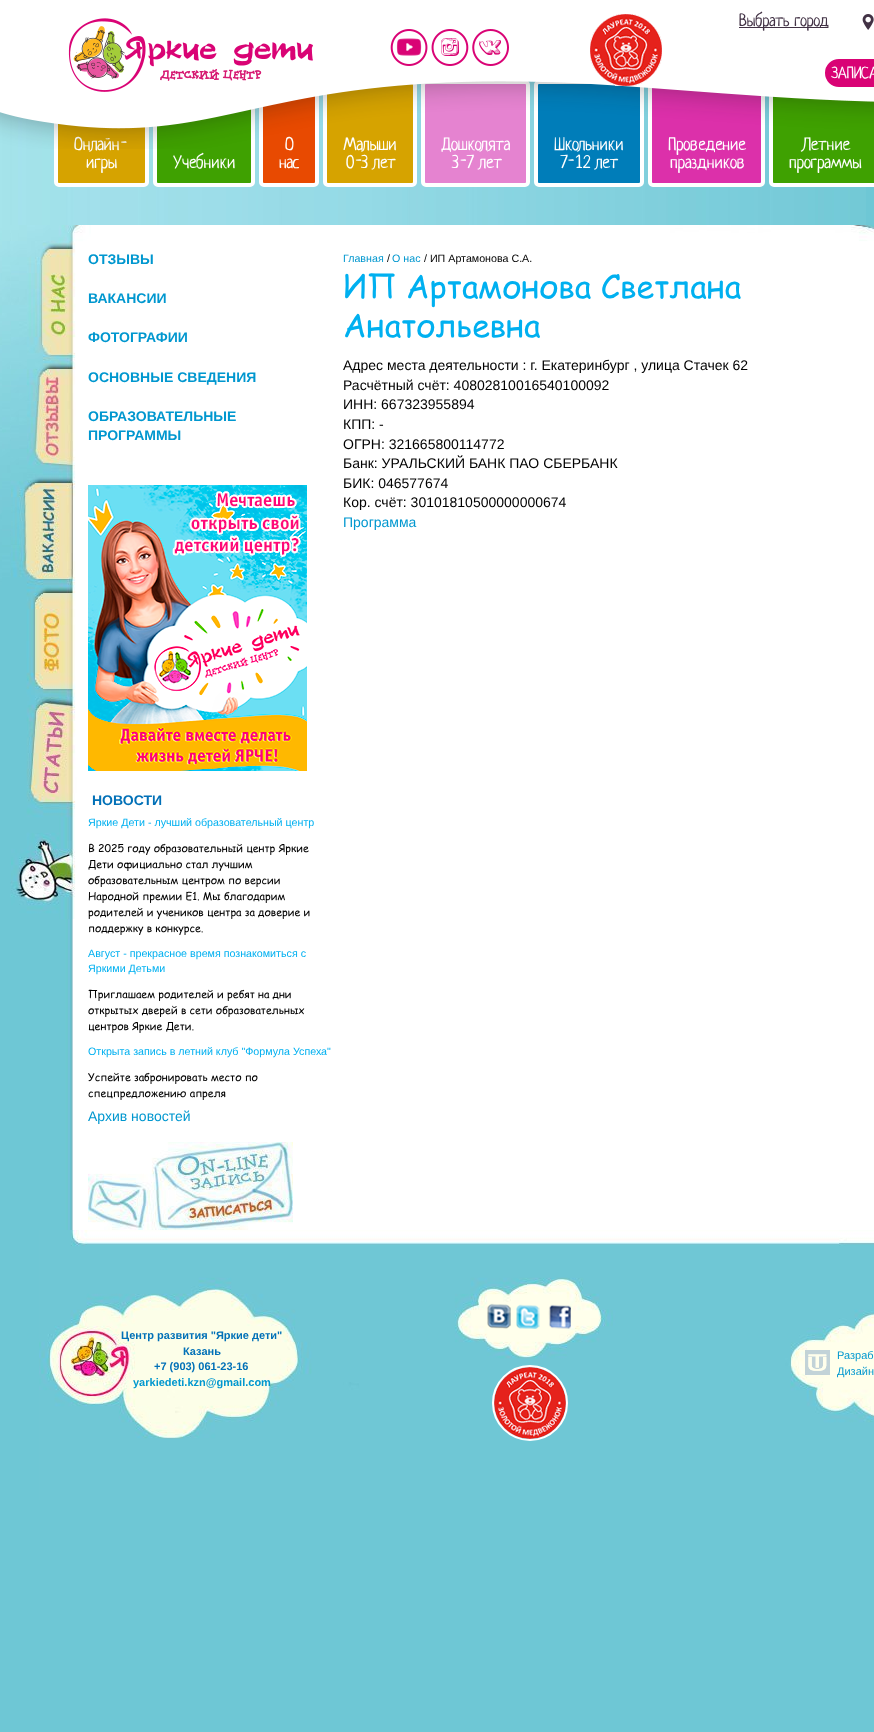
async function draw(canvas) {
  canvas.width = 874;
  canvas.height = 1732;
  const ctx = canvas.getContext('2d');
  ctx.miterLimit = 4;
  ctx.fontKerning = 'normal';
  function label(s, x, y, font, color) {
    ctx.font = font;
    ctx.fillStyle = color;
    ctx.fillText(s, x, y);
  }
  function rect(x, y, w, h, color) {
    ctx.fillStyle = color;
    ctx.fillRect(x, y, w, h);
  }
  async function image(src, x, y, w, h) {
    const img = new Image();
    img.src = src;
    await img.decode();
    ctx.drawImage(img, x, y, w, h);
  }

  rect(0, 0, 874, 1732, '#6ec7d5');
  await image('assets/img1.png', 0, 81, 866, 144);
  ctx.fillStyle = '#d6a300';
  ctx.beginPath();
  ctx.roundRect(56, 82, 91, 103, 3);
  ctx.fill();
  ctx.strokeStyle = '#fff';
  ctx.lineWidth = 4;
  ctx.stroke();
  label('Онлайн-', 74, 150, '18px Neucha', '#fff');
  ctx.fillStyle = '#3fa101';
  ctx.beginPath();
  ctx.roundRect(155, 82, 98, 103, 3);
  ctx.fill();
  ctx.stroke();
  ctx.fillStyle = '#e84a01';
  ctx.beginPath();
  ctx.roundRect(261, 82, 56, 103, 3);
  ctx.fill();
  ctx.stroke();
  label('О', 285, 150, '18px Neucha', '#fff');
  ctx.fillStyle = '#d6a300';
  ctx.beginPath();
  ctx.roundRect(325, 82, 90, 103, 3);
  ctx.fill();
  ctx.stroke();
  label('Малыши', 343, 150, '18px Neucha', '#fff');
  ctx.fillStyle = '#e583d0';
  ctx.beginPath();
  ctx.roundRect(423, 82, 105, 103, 3);
  ctx.fill();
  ctx.stroke();
  label('Дошколята', 441, 150, '18px Neucha', '#fff');
  ctx.fillStyle = '#007db9';
  ctx.beginPath();
  ctx.roundRect(536, 82, 106, 103, 3);
  ctx.fill();
  ctx.stroke();
  label('Школьники', 554, 150, '18px Neucha', '#fff');
  ctx.fillStyle = '#dc30aa';
  ctx.beginPath();
  ctx.roundRect(650, 82, 113, 103, 3);
  ctx.fill();
  ctx.stroke();
  label('Проведение', 668, 150, '18px Neucha', '#fff');
  ctx.fillStyle = '#3fa101';
  ctx.beginPath();
  ctx.roundRect(771, 82, 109, 103, 3);
  ctx.fill();
  ctx.stroke();
  label('Летние', 802, 150, '18px Neucha', '#fff');
  await image('assets/img2.png', 0, 0, 874, 149);
  await image('assets/img3.png', 68, 18, 245, 74);
  await image('assets/img4.png', 390, 29, 38, 37);
  await image('assets/img5.png', 431, 29, 38, 37);
  await image('assets/img6.png', 472, 29, 37, 37);
  await image('assets/img7.png', 590, 14, 72, 72);
  rect(739, 27, 89, 1, '#423245');
  label('Выбрать город', 739, 26, '17px Neucha', '#423245');
  await image('assets/img8.png', 862, 14, 12, 16);
  ctx.fillStyle = '#d90375';
  ctx.beginPath();
  ctx.roundRect(826.5, 60.5, 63, 25, 12.5);
  ctx.fill();
  ctx.strokeStyle = '#d90375';
  ctx.lineWidth = 3;
  ctx.stroke();
  label('ЗАПИСА', 831, 78, '16px Neucha', '#fff');
  label('игры', 86, 168, '18px Neucha', '#fff');
  label('Учебники', 173, 168, '18px Neucha', '#fff');
  label('нас', 279, 168, '18px Neucha', '#fff');
  label('0-3 лет', 346, 168, '18px Neucha', '#fff');
  label('3-7 лет', 451, 168, '18px Neucha', '#fff');
  label('7-12 лет', 560, 168, '18px Neucha', '#fff');
  label('праздников', 670, 168, '18px Neucha', '#fff');
  label('программы', 789, 168, '18px Neucha', '#fff');
  await image('assets/img9.png', 0, 225, 73, 1088);
  await image('assets/img10.png', 11, 225, 863, 694);
  label('ОТЗЫВЫ', 88, 264, 'bold 14px Liberation Sans', '#0097cf');
  label('ВАКАНСИИ', 88, 303, 'bold 14px Liberation Sans', '#0097cf');
  label('ФОТОГРАФИИ', 88, 342, 'bold 14px Liberation Sans', '#0097cf');
  label('ОСНОВНЫЕ СВЕДЕНИЯ', 88, 382, 'bold 14px Liberation Sans', '#0097cf');
  label('ОБРАЗОВАТЕЛЬНЫЕ', 88, 421, 'bold 14px Liberation Sans', '#0097cf');
  label('ПРОГРАММЫ', 88, 440, 'bold 14px Liberation Sans', '#0097cf');
  await image('assets/img11.png', 88, 485, 219, 286);
  label('НОВОСТИ', 92, 805, 'bold 14px Liberation Sans', '#0170b7');
  label('Яркие Дети - лучший образовательный центр', 88, 826, '10.7px Liberation Sans', '#00b0f0');
  label('В 2025 году образовательный центр Яркие', 88, 852, '10.7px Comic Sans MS', '#000');
  label('Дети официально стал лучшим', 88, 868, '10.7px Comic Sans MS', '#000');
  label('образовательным центром по версии', 88, 884, '10.7px Comic Sans MS', '#000');
  label('Народной премии Е1. Мы благодарим', 88, 900, '10.7px Comic Sans MS', '#000');
  label('родителей и учеников центра за доверие и', 88, 916, '10.7px Comic Sans MS', '#000');
  rect(73, 919, 801, 311, '#fff');
  label('поддержку в конкурсе.', 88, 932, '10.7px Comic Sans MS', '#000');
  label('Август - прекрасное время познакомиться с', 88, 957, '10.7px Liberation Sans', '#00b0f0');
  label('Яркими Детьми', 88, 972, '10.7px Liberation Sans', '#00b0f0');
  label('Приглашаем родителей и ребят на дни', 88, 998, '10.7px Comic Sans MS', '#000');
  label('открытых дверей в сети образовательных', 88, 1014, '10.7px Comic Sans MS', '#000');
  label('центров Яркие Дети.', 88, 1030, '10.7px Comic Sans MS', '#000');
  label('Открыта запись в летний клуб "Формула Успеха"', 88, 1055, '10.7px Liberation Sans', '#00b0f0');
  label('Успейте забронировать место по', 88, 1081, '10.7px Comic Sans MS', '#000');
  label('спецпредложению апреля', 88, 1097, '10.7px Comic Sans MS', '#000');
  label('Архив новостей', 88, 1121, '14px Liberation Sans', '#0097cf');
  await image('assets/img12.png', 88, 1142, 205, 88);
  label('Главная', 343, 262, '10.7px Liberation Sans', '#0097cf');
  label('/', 387, 262, '10.7px Liberation Sans', '#000');
  label('О нас', 392, 262, '10.7px Liberation Sans', '#0097cf');
  label('/ ИП Артамонова С.А.', 424, 262, '10.7px Liberation Sans', '#000');
  label('ИП Артамонова Светлана', 343, 298, '32.25px Comic Sans MS', '#00b0f0');
  label('Анатольевна', 343, 337, '32.25px Comic Sans MS', '#00b0f0');
  label('Адрес места деятельности : г. Екатеринбург , улица Стачек 62', 343, 370, '14px Liberation Sans', '#000');
  label('Расчётный счёт: 40802810016540100092', 343, 390, '14px Liberation Sans', '#000');
  label('ИНН: 667323955894', 343, 409, '14px Liberation Sans', '#000');
  label('КПП: -', 343, 429, '14px Liberation Sans', '#000');
  label('ОГРН: 321665800114772', 343, 449, '14px Liberation Sans', '#000');
  label('Банк: УРАЛЬСКИЙ БАНК ПАО СБЕРБАНК', 343, 468, '14px Liberation Sans', '#000');
  label('БИК: 046577674', 343, 488, '14px Liberation Sans', '#000');
  label('Кор. счёт: 30101810500000000674', 343, 507, '14px Liberation Sans', '#000');
  label('Программа', 343, 527, '14px Liberation Sans', '#0097cf');
  await image('assets/img13.png', 39, 1230, 835, 270);
  label('Центр развития "Яркие дети"', 121, 1339, 'bold 11px Liberation Sans', '#0170b7');
  label('Казань', 183, 1355, 'bold 11px Liberation Sans', '#0170b7');
  label('+7 (903) 061-23-16', 154, 1370, 'bold 11px Liberation Sans', '#0170b7');
  label('yarkiedeti.kzn@gmail.com', 133, 1386, 'bold 11px Liberation Sans', '#0097cf');
  await image('assets/img14.png', 487, 1303, 24, 26);
  await image('assets/img15.png', 516, 1304, 24, 25);
  await image('assets/img16.png', 548, 1304, 23, 25);
  ctx.beginPath();
  ctx.arc(530, 1403, 37, 0, 2 * Math.PI);
  ctx.strokeStyle = '#fff';
  ctx.lineWidth = 2;
  ctx.stroke();
  await image('assets/img17.png', 494, 1367, 72, 72);
  await image('assets/img18.png', 805, 1350, 25, 25);
  label('Разраб', 837, 1359, '11px Liberation Sans', '#0097cf');
  label('Дизайн', 837, 1375, '11px Liberation Sans', '#0097cf');
}

draw(document.querySelector('canvas'));
